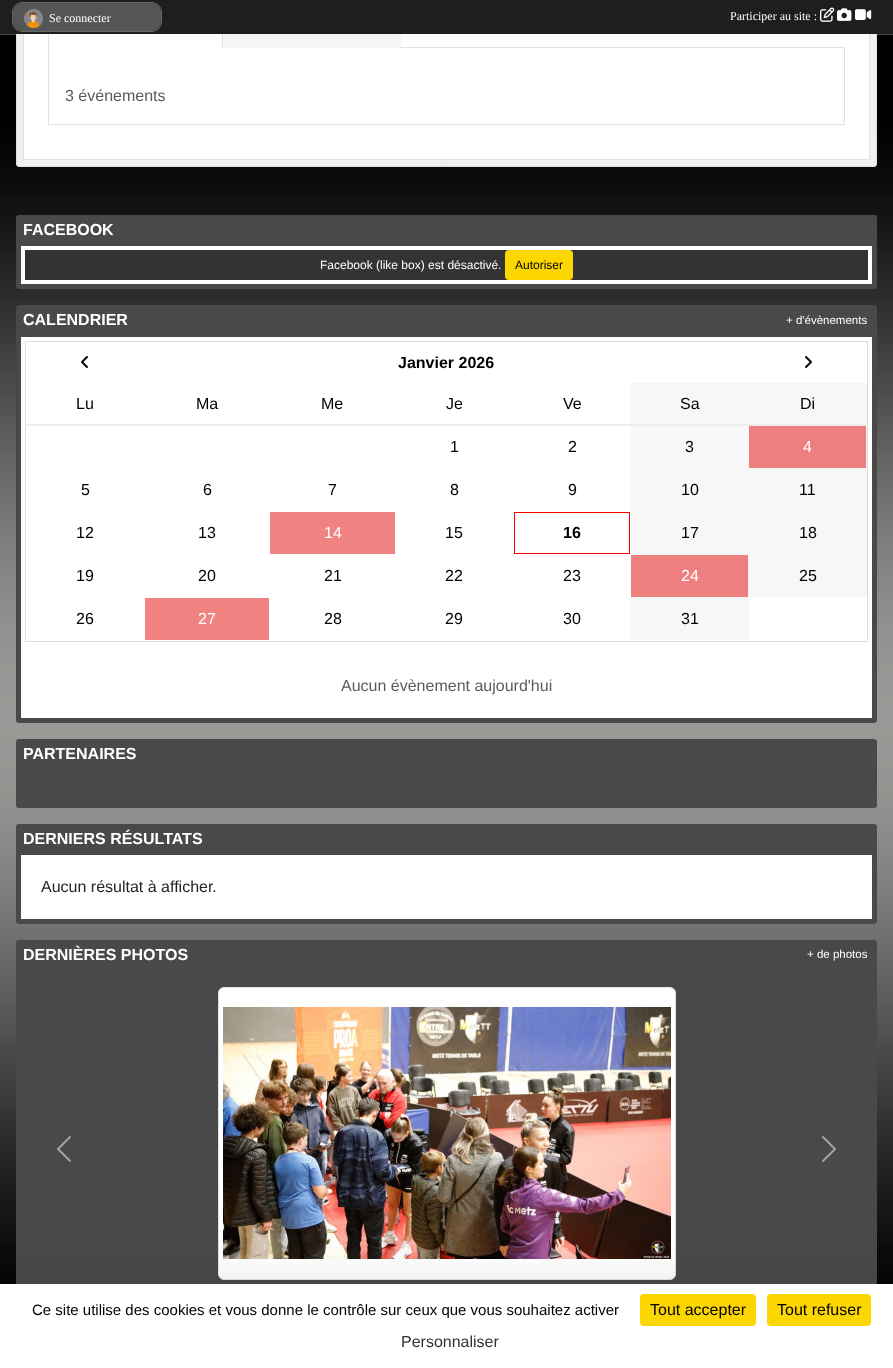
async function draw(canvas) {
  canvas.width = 893;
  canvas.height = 1368;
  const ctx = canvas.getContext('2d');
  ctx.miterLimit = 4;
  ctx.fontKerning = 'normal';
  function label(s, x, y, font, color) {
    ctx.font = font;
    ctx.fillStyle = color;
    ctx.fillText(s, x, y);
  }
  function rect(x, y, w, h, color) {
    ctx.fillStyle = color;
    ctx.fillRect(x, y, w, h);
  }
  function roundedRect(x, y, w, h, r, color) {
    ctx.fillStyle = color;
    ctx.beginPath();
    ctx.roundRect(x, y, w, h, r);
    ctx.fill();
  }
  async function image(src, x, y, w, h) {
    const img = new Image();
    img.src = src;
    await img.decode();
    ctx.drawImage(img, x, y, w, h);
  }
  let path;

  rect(0, 0, 893, 1368, '#fff');
  await image('assets/img1.png', 0, 34, 893, 1250);
  ctx.fillStyle = '#f0f0f0';
  ctx.beginPath();
  ctx.roundRect(16.5, -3.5, 860, 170, 2.5);
  ctx.fill();
  ctx.strokeStyle = '#e1e1e1';
  ctx.stroke();
  rect(24, 34, 845, 125, '#fff');
  ctx.strokeRect(23.5, -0.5, 846, 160);
  ctx.fillStyle = '#dee2e6';
  path = new Path2D('M223 48V12C223 10 222 9 221 8C222 9 222 10 222 12V47Z');
  ctx.fill(path);
  ctx.fillStyle = '#fff';
  path = new Path2D('M223 48L222 47H49L48 48Z');
  ctx.fill(path);
  ctx.fillStyle = '#dee2e6';
  path = new Path2D('M48 48L49 47V12C49 10 50 9 50 8C49 9 48 10 48 12Z');
  ctx.fill(path);
  rect(0, 0, 893, 34, '#1e1e1e');
  ctx.beginPath();
  ctx.roundRect(12.5, 2.5, 149, 29, 9.5);
  ctx.strokeStyle = '#666';
  ctx.stroke();
  roundedRect(13, 3, 148, 28, 9, '#555');
  await image('assets/img2.png', 24, 9, 19, 19);
  label('Se connecter', 49, 22, '12px Liberation Serif', '#fff');
  label('Participer au site :', 730, 20, '12px Liberation Serif', '#fff');
  await image('assets/img3.png', 820, 7, 15, 15);
  await image('assets/img4.png', 837, 8, 15, 13);
  await image('assets/img5.png', 855, 9, 17, 11);
  rect(401, 47, 444, 1, '#dee2e6');
  rect(223, 34, 178, 14, '#f5f5f5');
  rect(844, 48, 1, 77, '#dee2e6');
  rect(48, 124, 797, 1, '#dee2e6');
  rect(48, 48, 1, 77, '#dee2e6');
  label('3 événements', 65, 101, '16px Liberation Sans', '#595c5f');
  roundedRect(16, 215, 861, 74, 3, '#494949');
  label('FACEBOOK', 23, 235, 'bold 16px Liberation Sans', '#fff');
  rect(21, 246, 851, 38, '#fff');
  rect(25, 250, 843, 30, '#333');
  label('Facebook (like box) est désactivé.', 320, 269, '12px Liberation Sans', '#fff');
  roundedRect(505, 250, 68, 30, 4, '#fbd600');
  label('Autoriser', 515, 269, '12px Liberation Sans', '#000');
  roundedRect(16, 305, 861, 418, 3, '#494949');
  label('CALENDRIER', 23, 325, 'bold 16px Liberation Sans', '#fff');
  rect(21, 337, 851, 381, '#fff');
  ctx.strokeStyle = '#ddd';
  ctx.strokeRect(25.5, 341.5, 842, 300);
  rect(26, 424, 842, 2, '#eee');
  await image('assets/img6.png', 81, 356, 7, 12);
  label('Janvier 2026', 398, 368, 'bold 16px Liberation Sans', '#000');
  await image('assets/img7.png', 805, 356, 7, 12);
  label('Lu', 76, 409, '16px Liberation Sans', '#000');
  label('Ma', 196, 409, '16px Liberation Sans', '#000');
  label('Me', 321, 409, '16px Liberation Sans', '#000');
  label('Je', 446, 409, '16px Liberation Sans', '#000');
  label('Ve', 563, 409, '16px Liberation Sans', '#000');
  rect(631, 383, 236, 41, '#f7f7f7');
  label('Sa', 680, 409, '16px Liberation Sans', '#000');
  label('Di', 800, 409, '16px Liberation Sans', '#000');
  label('1', 450, 452, '16px Liberation Sans', '#000');
  label('2', 568, 452, '16px Liberation Sans', '#000');
  rect(631, 426, 118, 214, '#f7f7f7');
  label('3', 685, 452, '16px Liberation Sans', '#000');
  rect(866, 426, 1, 42, '#f7f7f7');
  rect(749, 426, 117, 42, '#ed807e');
  label('4', 803, 452, '16px Liberation Sans', '#fff');
  label('5', 81, 495, '16px Liberation Sans', '#000');
  label('6', 203, 495, '16px Liberation Sans', '#000');
  label('7', 328, 495, '16px Liberation Sans', '#000');
  label('8', 450, 495, '16px Liberation Sans', '#000');
  label('9', 568, 495, '16px Liberation Sans', '#000');
  label('10', 681, 495, '16px Liberation Sans', '#000');
  rect(749, 468, 118, 129, '#f7f7f7');
  label('11', 799, 495, '16px Liberation Sans', '#000');
  label('12', 76, 538, '16px Liberation Sans', '#000');
  label('13', 198, 538, '16px Liberation Sans', '#000');
  rect(270, 512, 125, 42, '#f08382');
  label('14', 324, 538, '16px Liberation Sans', '#fff');
  label('15', 445, 538, '16px Liberation Sans', '#000');
  ctx.strokeStyle = '#f00';
  ctx.strokeRect(514.5, 512.5, 115, 41);
  label('16', 563, 538, 'bold 16px Liberation Sans', '#000');
  label('17', 681, 538, '16px Liberation Sans', '#000');
  label('18', 799, 538, '16px Liberation Sans', '#000');
  label('19', 76, 581, '16px Liberation Sans', '#000');
  label('20', 198, 581, '16px Liberation Sans', '#000');
  label('21', 324, 581, '16px Liberation Sans', '#000');
  label('22', 445, 581, '16px Liberation Sans', '#000');
  label('23', 563, 581, '16px Liberation Sans', '#000');
  rect(631, 555, 117, 42, '#ed807e');
  label('24', 681, 581, '16px Liberation Sans', '#fff');
  label('25', 799, 581, '16px Liberation Sans', '#000');
  label('26', 76, 624, '16px Liberation Sans', '#000');
  rect(145, 598, 124, 42, '#f08382');
  label('27', 198, 624, '16px Liberation Sans', '#fff');
  label('28', 324, 624, '16px Liberation Sans', '#000');
  label('29', 445, 624, '16px Liberation Sans', '#000');
  label('30', 563, 624, '16px Liberation Sans', '#000');
  label('31', 681, 624, '16px Liberation Sans', '#000');
  label('Aucun évènement aujourd\'hui', 341, 691, '16px Liberation Sans', '#595c5f');
  label('+ d\'évènements', 786, 324, '11.5px Liberation Sans', '#fff');
  roundedRect(16, 739, 861, 69, 3, '#494949');
  label('PARTENAIRES', 23, 759, 'bold 16px Liberation Sans', '#fff');
  roundedRect(16, 824, 861, 100, 3, '#494949');
  label('DERNIERS RÉSULTATS', 23, 844, 'bold 16px Liberation Sans', '#fff');
  rect(21, 855, 851, 64, '#fff');
  label('Aucun résultat à afficher.', 41, 892, '16px Liberation Sans', '#212529');
  roundedRect(16, 940, 861, 393, 3, '#494949');
  label('DERNIÈRES PHOTOS', 23, 960, 'bold 16px Liberation Sans', '#fff');
  label('+ de photos', 807, 958, '11.5px Liberation Sans', '#fff');
  await image('assets/img8.png', 57, 1136, 14, 26);
  ctx.beginPath();
  ctx.roundRect(218.5, 987.5, 457, 292, 5.5);
  ctx.fill();
  ctx.strokeStyle = '#dee2e6';
  ctx.stroke();
  await image('assets/img9.png', 223, 1000, 448, 264);
  await image('assets/img10.png', 822, 1136, 14, 26);
  ctx.fillStyle = '#00000040';
  ctx.filter = 'blur(30px)';
  ctx.beginPath();
  ctx.rect(0, 1304, 893, 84);
  ctx.fill();
  ctx.filter = 'none';
  rect(0, 1284, 893, 84, '#fff');
  label('Ce site utilise des cookies et vous donne le contrôle sur ceux que vous souhaitez activer', 32, 1315, '15px Liberation Sans', '#000');
  roundedRect(640, 1294, 116, 32, 4, '#fbd600');
  label('Tout accepter', 650, 1315, '16px Liberation Sans', '#000');
  roundedRect(767, 1294, 104, 32, 4, '#fbd600');
  label('Tout refuser', 777, 1315, '16px Liberation Sans', '#000');
  label('Personnaliser', 401, 1347, '16px Liberation Sans', '#333');
}

draw(document.querySelector('canvas'));
